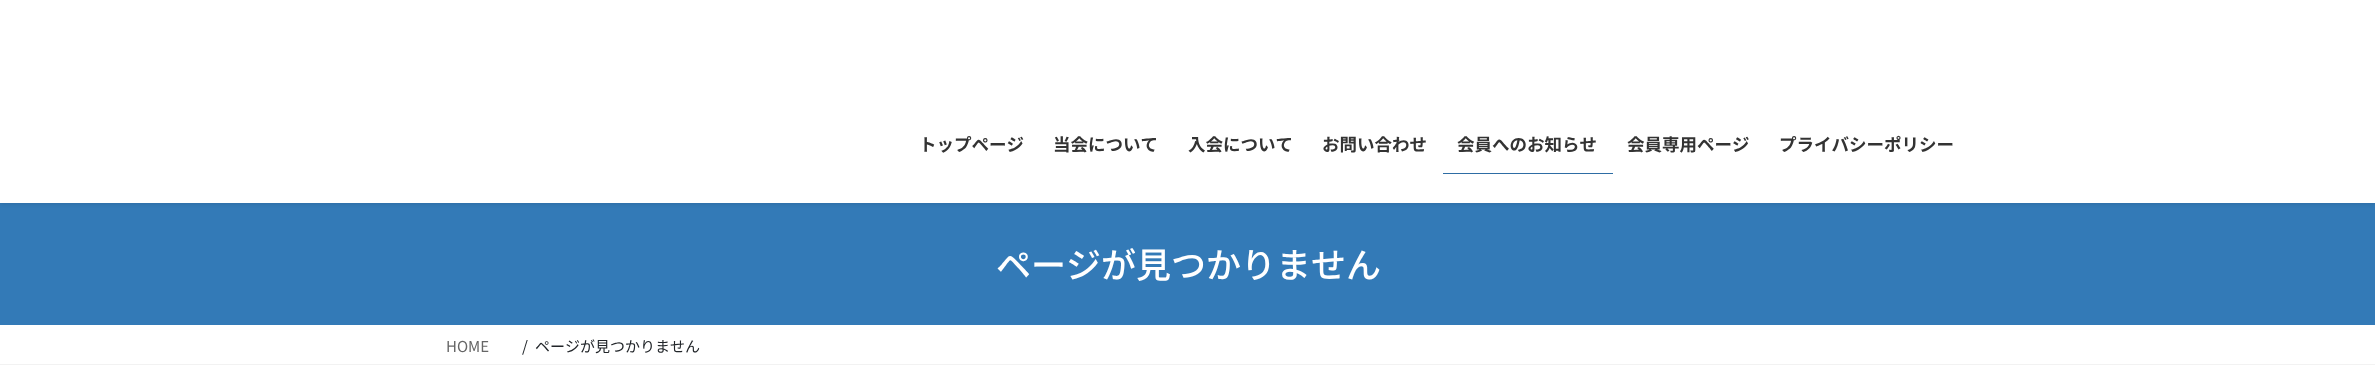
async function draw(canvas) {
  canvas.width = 2375;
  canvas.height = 368;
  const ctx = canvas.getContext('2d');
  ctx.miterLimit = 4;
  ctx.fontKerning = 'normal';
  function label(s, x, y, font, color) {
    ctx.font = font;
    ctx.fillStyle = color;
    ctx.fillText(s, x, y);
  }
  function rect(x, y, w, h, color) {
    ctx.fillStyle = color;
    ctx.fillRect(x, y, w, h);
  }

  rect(0, 0, 2375, 368, '#fff');
  rect(0, 203, 2375, 122, '#337ab7');
  ctx.fillStyle = '#0000001a';
  ctx.filter = 'blur(2px)';
  ctx.beginPath();
  ctx.rect(0, 1, 2375, 203);
  ctx.fill();
  ctx.filter = 'none';
  rect(0, 0, 2375, 203, '#fff');
  label('トップページ', 919, 151, 'bold 17.5px Noto Sans JP', '#333');
  label('当会について', 1053, 151, 'bold 17.5px Noto Sans JP', '#333');
  label('入会について', 1188, 151, 'bold 17.5px Noto Sans JP', '#333');
  label('お問い合わせ', 1322, 151, 'bold 17.5px Noto Sans JP', '#333');
  label('会員へのお知らせ', 1457, 151, 'bold 17.5px Noto Sans JP', '#333');
  rect(1443, 173, 170, 1, '#2e6da4');
  label('会員専用ページ', 1627, 151, 'bold 17.5px Noto Sans JP', '#333');
  label('プライバシーポリシー', 1779, 151, 'bold 17.5px Noto Sans JP', '#333');
  label('ページが見つかりません', 996, 278, '500 35px Noto Sans JP', '#fff');
  rect(0, 364, 2375, 1, '#f2f2f2');
  label('HOME', 446, 352, '15px Noto Sans JP', '#666');
  label('/', 522, 352, '15px Noto Sans JP', '#212529');
  label('ページが見つかりません', 535, 352, '15px Noto Sans JP', '#212529');
}

draw(document.querySelector('canvas'));
